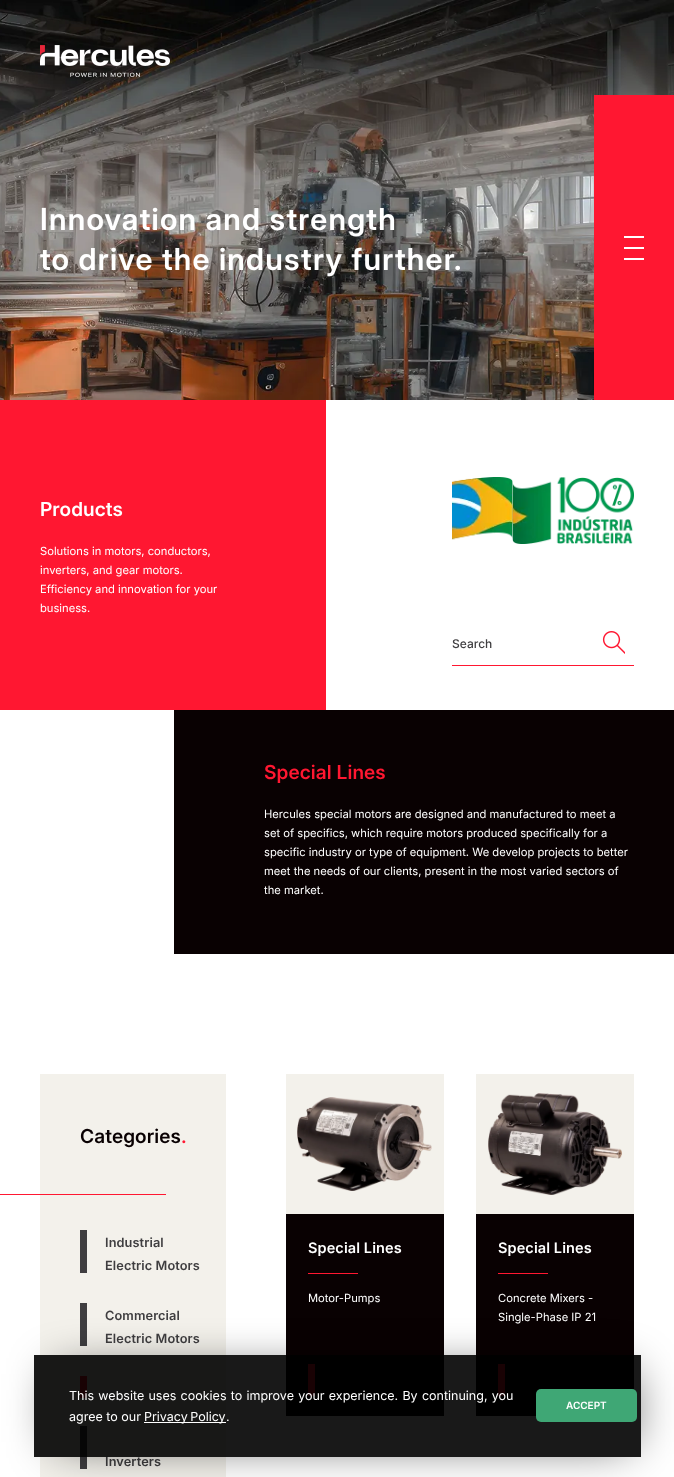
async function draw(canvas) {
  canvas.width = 674;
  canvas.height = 1477;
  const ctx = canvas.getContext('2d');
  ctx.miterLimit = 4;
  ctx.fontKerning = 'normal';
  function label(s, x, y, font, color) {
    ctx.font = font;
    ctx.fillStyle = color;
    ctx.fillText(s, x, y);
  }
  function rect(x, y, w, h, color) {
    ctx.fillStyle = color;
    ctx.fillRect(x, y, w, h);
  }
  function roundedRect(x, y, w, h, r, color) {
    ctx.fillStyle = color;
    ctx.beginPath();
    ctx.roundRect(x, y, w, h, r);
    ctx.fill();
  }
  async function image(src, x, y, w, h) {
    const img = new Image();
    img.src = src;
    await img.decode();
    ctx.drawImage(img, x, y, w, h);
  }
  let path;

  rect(0, 0, 674, 1477, '#fff');
  await image('assets/img2.png', 0, 0, 674, 400);
  await image('assets/img1.png', 40, 45, 130, 32);
  ctx.letterSpacing = '1.25px';
  label('Innovation and strength', 40, 230, '600 30.4px Inter', '#fff');
  label('to drive the industry further.', 40, 270, '600 30.4px Inter', '#fff');
  rect(594, 95, 80, 305, '#ff1731');
  rect(624, 236, 20, 2, '#fff');
  rect(624, 247, 20, 2, '#fff');
  rect(624, 258, 20, 2, '#fff');
  rect(0, 400, 326, 310, '#ff1731');
  ctx.letterSpacing = '0.1px';
  label('Products', 40, 516, '600 19.25px "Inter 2"', '#fff');
  ctx.letterSpacing = '0px';
  label('Solutions in motors, conductors,', 40, 555, '11.2px Inter', '#fff');
  label('inverters, and gear motors.', 40, 574, '11.2px Inter', '#fff');
  label('Efficiency and innovation for your', 40, 593, '11.2px Inter', '#fff');
  label('business.', 40, 612, '11.2px Inter', '#fff');
  await image('assets/img3.png', 452, 477, 182, 67);
  rect(452, 665, 182, 1, '#ff1731');
  label('Search', 452, 648, '500 12px Inter', '#3f3e40');
  await image('assets/img4.png', 602, 631, 23, 23);
  rect(174, 710, 500, 244, '#090102');
  ctx.letterSpacing = '0.1px';
  label('Special Lines', 264, 779, '600 19.25px "Inter 2"', '#ff1731');
  ctx.letterSpacing = '0px';
  label('Hercules special motors are designed and manufactured to meet a', 264, 818, '11.2px Inter', '#fff');
  label('set of specifics, which require motors produced specifically for a', 264, 837, '11.2px Inter', '#fff');
  label('specific industry or type of equipment. We develop projects to better', 264, 856, '11.2px Inter', '#fff');
  label('meet the needs of our clients, present in the most varied sectors of', 264, 875, '11.2px Inter', '#fff');
  label('the market.', 264, 894, '11.2px Inter', '#fff');
  rect(40, 1074, 186, 403, '#f3f1eb');
  ctx.letterSpacing = '0.1px';
  label('Categories', 80, 1143, '600 19.25px "Inter 2"', '#090102');
  label('.', 181, 1143, '600 19.25px "Inter 2"', '#ff1731');
  rect(0, 1194, 166, 1, '#ff1731');
  rect(80, 1230, 7, 43, '#3f3e40');
  label('Industrial', 105, 1247, '600 12.75px "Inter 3"', '#3f3e40');
  label('Electric Motors', 105, 1270, '600 12.75px "Inter 3"', '#3f3e40');
  rect(80, 1303, 7, 43, '#3f3e40');
  label('Commercial', 105, 1320, '600 12.75px "Inter 3"', '#3f3e40');
  label('Electric Motors', 105, 1343, '600 12.75px "Inter 3"', '#3f3e40');
  rect(80, 1376, 7, 22, '#ff1731');
  rect(80, 1426, 7, 43, '#3f3e40');
  label('Inverters', 105, 1466, '600 12.75px "Inter 3"', '#3f3e40');
  rect(286, 1074, 158, 140, '#f3f1eb');
  await image('assets/img5.png', 297, 1097, 135, 94);
  rect(286, 1214, 158, 202, '#090102');
  label('Special Lines', 308, 1253, '600 14.5px "Inter 3"', '#fff');
  rect(308, 1273, 50, 1, '#ff1731');
  ctx.letterSpacing = '0px';
  label('Motor-Pumps', 308, 1302, '11.2px Inter', '#fff');
  rect(308, 1364, 7, 32, '#ff1731');
  rect(476, 1074, 158, 140, '#f3f1eb');
  await image('assets/img6.png', 488, 1093, 134, 102);
  rect(476, 1214, 158, 202, '#090102');
  ctx.letterSpacing = '0.1px';
  label('Special Lines', 498, 1253, '600 14.5px "Inter 3"', '#fff');
  rect(498, 1273, 50, 1, '#ff1731');
  ctx.letterSpacing = '0px';
  label('Concrete Mixers -', 498, 1302, '11.2px Inter', '#fff');
  label('Single-Phase IP 21', 498, 1321, '11.2px Inter', '#fff');
  rect(498, 1364, 7, 32, '#ff1731');
  ctx.save();
  path = new Path2D('M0 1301H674V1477H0ZM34 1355H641V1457H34Z');
  ctx.clip(path, 'evenodd');
  ctx.fillStyle = '#000000bf';
  ctx.filter = 'blur(24px)';
  ctx.beginPath();
  ctx.rect(57, 1374, 573, 68);
  ctx.fill();
  ctx.filter = 'none';
  ctx.restore();
  rect(34, 1355, 607, 102, '#000000e6');
  ctx.wordSpacing = '0.75px';
  label('This website uses cookies to improve your experience. By continuing, you', 69, 1400, '12.5px Inter', '#fff');
  ctx.wordSpacing = '0px';
  label('agree to our', 69, 1421, '12.5px Inter', '#fff');
  rect(144, 1422, 82, 1, '#fff');
  ctx.wordSpacing = '-1px';
  label('Privacy Policy', 144, 1421, '12.5px Inter', '#fff');
  ctx.wordSpacing = '0px';
  label('.', 226, 1421, '12.5px Inter', '#fff');
  roundedRect(536, 1389, 101, 33, 5, '#3fa775');
  label('ACCEPT', 566, 1409, '600 10px "Inter 3"', '#fff');
}

draw(document.querySelector('canvas'));
